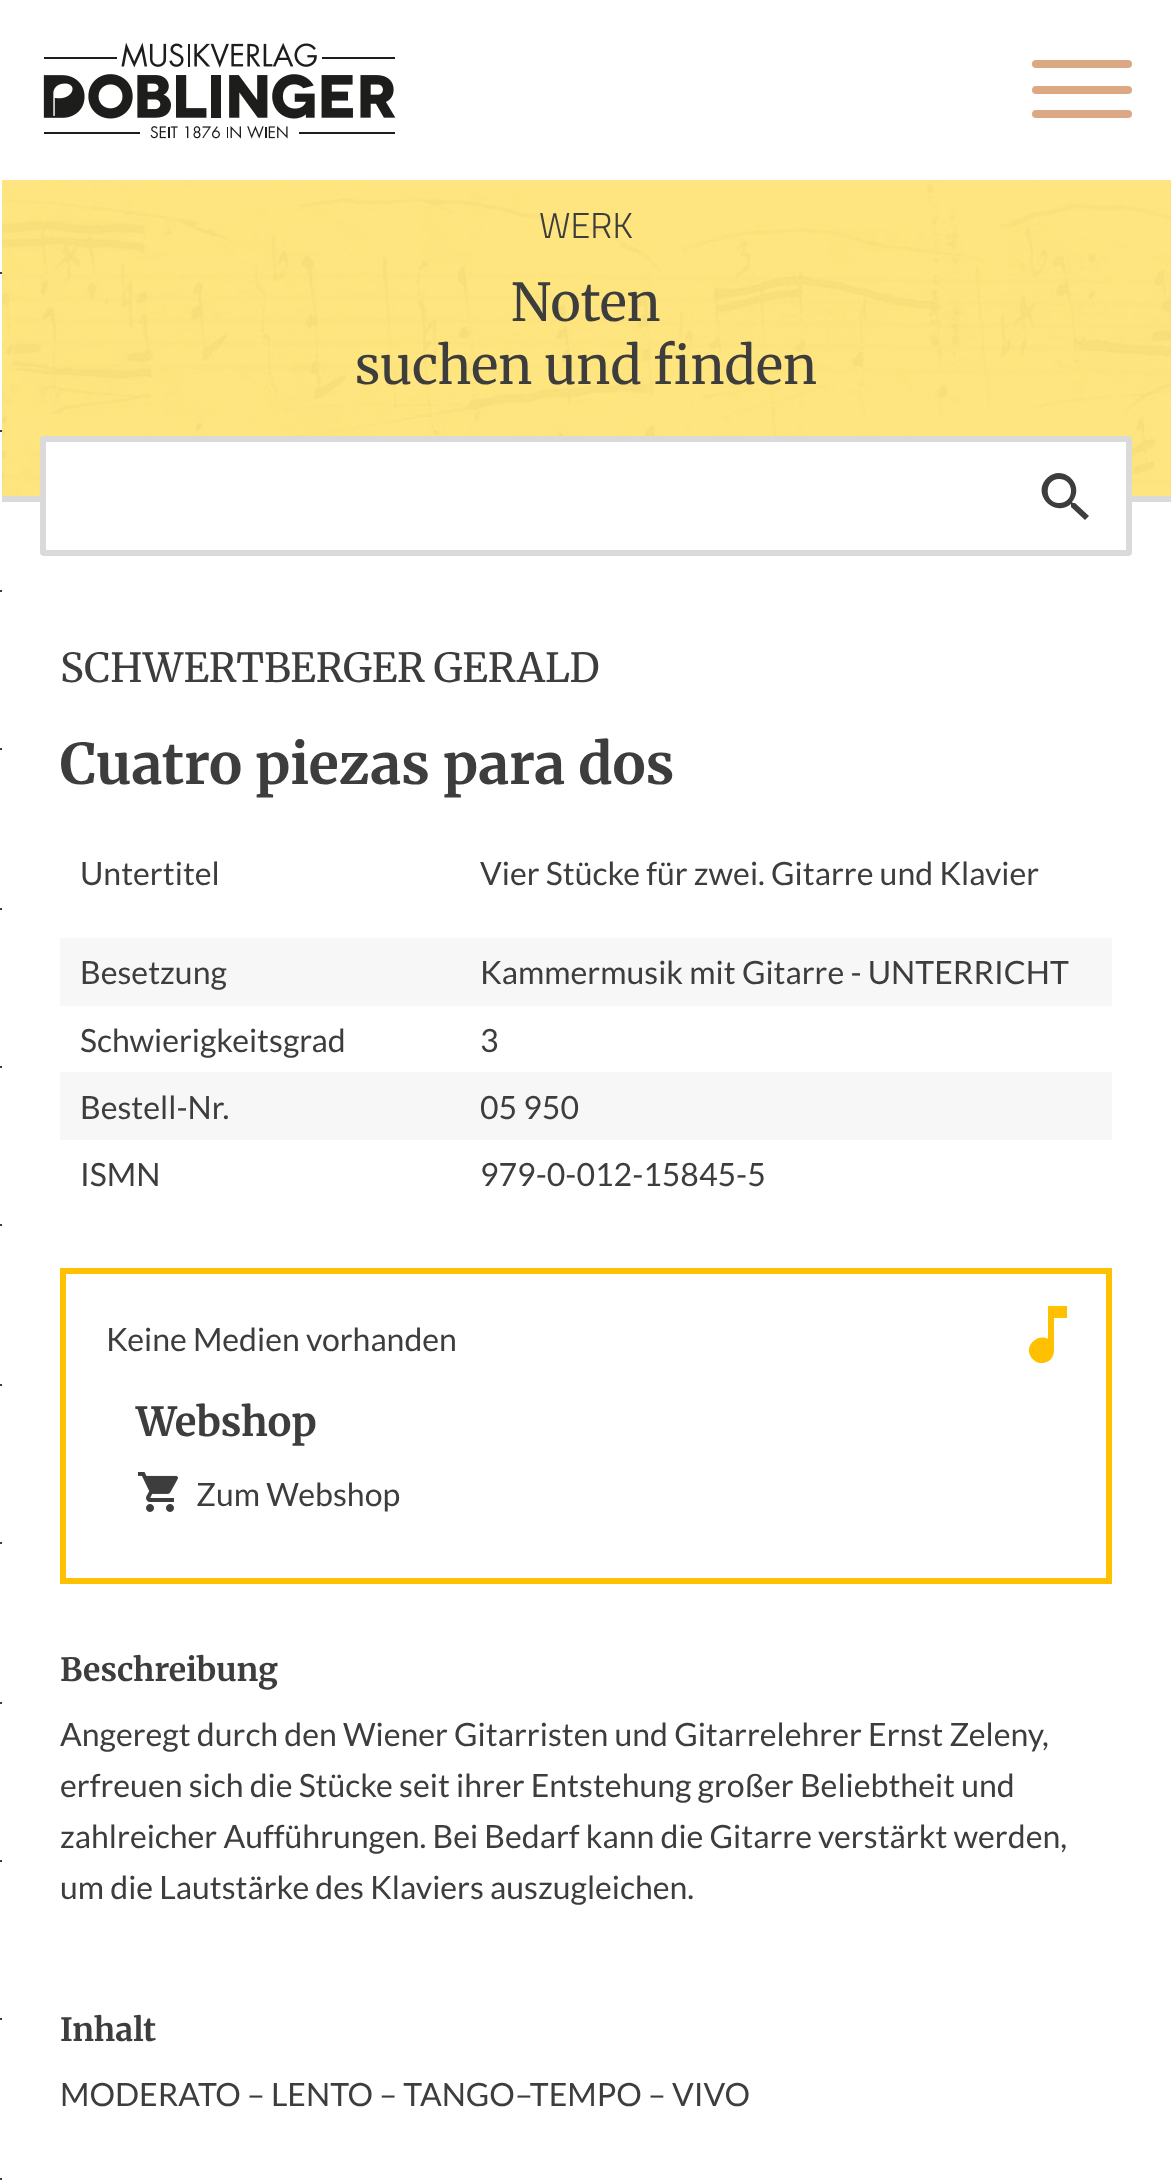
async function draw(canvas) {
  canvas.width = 1171;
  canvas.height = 2182;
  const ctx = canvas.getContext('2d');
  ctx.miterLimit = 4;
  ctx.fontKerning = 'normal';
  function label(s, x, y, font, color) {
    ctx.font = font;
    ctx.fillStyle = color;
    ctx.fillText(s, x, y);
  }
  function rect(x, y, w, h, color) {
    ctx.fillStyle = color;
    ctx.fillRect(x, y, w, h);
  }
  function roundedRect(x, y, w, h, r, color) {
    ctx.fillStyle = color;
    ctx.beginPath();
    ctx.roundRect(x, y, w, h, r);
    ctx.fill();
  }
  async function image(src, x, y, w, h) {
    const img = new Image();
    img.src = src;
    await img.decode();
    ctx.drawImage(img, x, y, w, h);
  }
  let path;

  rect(0, 0, 1171, 2182, '#fff');
  await image('assets/img1.png', 43, 42, 353, 97);
  roundedRect(1032, 60, 100, 8, 4, '#dca884');
  roundedRect(1032, 86, 100, 8, 4, '#dca884');
  roundedRect(1032, 110, 100, 8, 4, '#dca884');
  rect(0, 496, 1171, 6, '#dadada');
  rect(0, 496, 2, 6, '#fff');
  rect(0, 272, 2, 2, '#3d3d3d');
  rect(0, 430, 2, 2, '#3d3d3d');
  rect(0, 590, 2, 2, '#3d3d3d');
  rect(0, 748, 2, 2, '#3d3d3d');
  rect(0, 908, 2, 2, '#3d3d3d');
  rect(0, 1066, 2, 2, '#3d3d3d');
  rect(0, 1224, 2, 2, '#3d3d3d');
  rect(0, 1384, 2, 2, '#3d3d3d');
  rect(0, 1542, 2, 2, '#3d3d3d');
  rect(0, 1702, 2, 2, '#3d3d3d');
  rect(0, 1860, 2, 2, '#3d3d3d');
  rect(0, 2018, 2, 2, '#3d3d3d');
  rect(0, 2178, 2, 2, '#3d3d3d');
  await image('assets/img2.png', 2, 180, 1169, 316);
  label('WERK', 539, 238, '300 36px Titillium Web', '#3d3d3d');
  label('Noten', 511, 321, '52px "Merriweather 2"', '#3d3d3d');
  label('suchen und finden', 355, 384, '52px "Merriweather 2"', '#3d3d3d');
  ctx.fillStyle = '#fff';
  ctx.beginPath();
  ctx.roundRect(43, 439, 1086, 114, 1);
  ctx.fill();
  ctx.strokeStyle = '#dadada';
  ctx.lineWidth = 6;
  ctx.stroke();
  ctx.fillStyle = '#3d3d3d';
  path = new Path2D('M1059 503C1075 503 1075 479 1059 479C1044 479 1044 503 1059 503ZM1075 503L1089 516L1085 520L1071 507V505V504C1054 518 1031 494 1047 478C1063 463 1086 485 1072 502L1073 503Z');
  ctx.fill(path);
  ctx.wordSpacing = '-1px';
  label('SCHWERTBERGER GERALD', 60, 682, '40px Merriweather', '#3d3d3d');
  ctx.wordSpacing = '0px';
  label('Cuatro piezas para dos', 60, 784, 'bold 56px Merriweather', '#3d3d3d');
  label('Untertitel', 80, 885, '32px Lato', '#3d3d3d');
  label('Vier Stücke für zwei. Gitarre und Klavier', 480, 885, '32px Lato', '#3d3d3d');
  rect(60, 938, 1052, 68, '#f7f7f7');
  label('Besetzung', 80, 984, '32px Lato', '#3d3d3d');
  label('Kammermusik mit Gitarre - UNTERRICHT', 480, 984, '32px Lato', '#3d3d3d');
  label('Schwierigkeitsgrad', 80, 1052, '32px Lato', '#3d3d3d');
  label('3', 480, 1052, '32px Lato', '#3d3d3d');
  rect(60, 1072, 1052, 68, '#f7f7f7');
  label('Bestell-Nr.', 80, 1119, '32px Lato', '#3d3d3d');
  label('05 950', 480, 1119, '32px Lato', '#3d3d3d');
  label('ISMN', 80, 1186, '32px Lato', '#3d3d3d');
  label('979-0-012-15845-5', 480, 1186, '32px Lato', '#3d3d3d');
  ctx.strokeStyle = '#ffc000';
  ctx.strokeRect(63, 1271, 1046, 310);
  label('Keine Medien vorhanden', 106, 1351, '32px Lato', '#3d3d3d');
  ctx.fillStyle = '#ffc000';
  path = new Path2D('M1048 1306H1067V1318H1054V1351C1054 1355 1052 1358 1050 1360C1036 1371 1020 1350 1035 1340C1039 1337 1044 1337 1048 1339Z');
  ctx.fill(path);
  label('Webshop', 136, 1436, 'bold 40px "Merriweather 2"', '#3d3d3d');
  await image('assets/img3.png', 137, 1472, 41, 40);
  label('Zum Webshop', 196, 1506, '32px Lato', '#3d3d3d');
  label('Beschreibung', 60, 1681, 'bold 32px "Merriweather 2"', '#3d3d3d');
  label('Angeregt durch den Wiener Gitarristen und Gitarrelehrer Ernst Zeleny,', 60, 1746, '32px Lato', '#3d3d3d');
  label('erfreuen sich die Stücke seit ihrer Entstehung großer Beliebtheit und', 60, 1797, '32px Lato', '#3d3d3d');
  label('zahlreicher Aufführungen. Bei Bedarf kann die Gitarre verstärkt werden,', 60, 1848, '32px Lato', '#3d3d3d');
  label('um die Lautstärke des Klaviers auszugleichen.', 60, 1899, '32px Lato', '#3d3d3d');
  label('Inhalt', 60, 2041, 'bold 32px "Merriweather 2"', '#3d3d3d');
  label('MODERATO – LENTO – TANGO–TEMPO – VIVO', 60, 2106, '32px Lato', '#3d3d3d');
}

draw(document.querySelector('canvas'));
